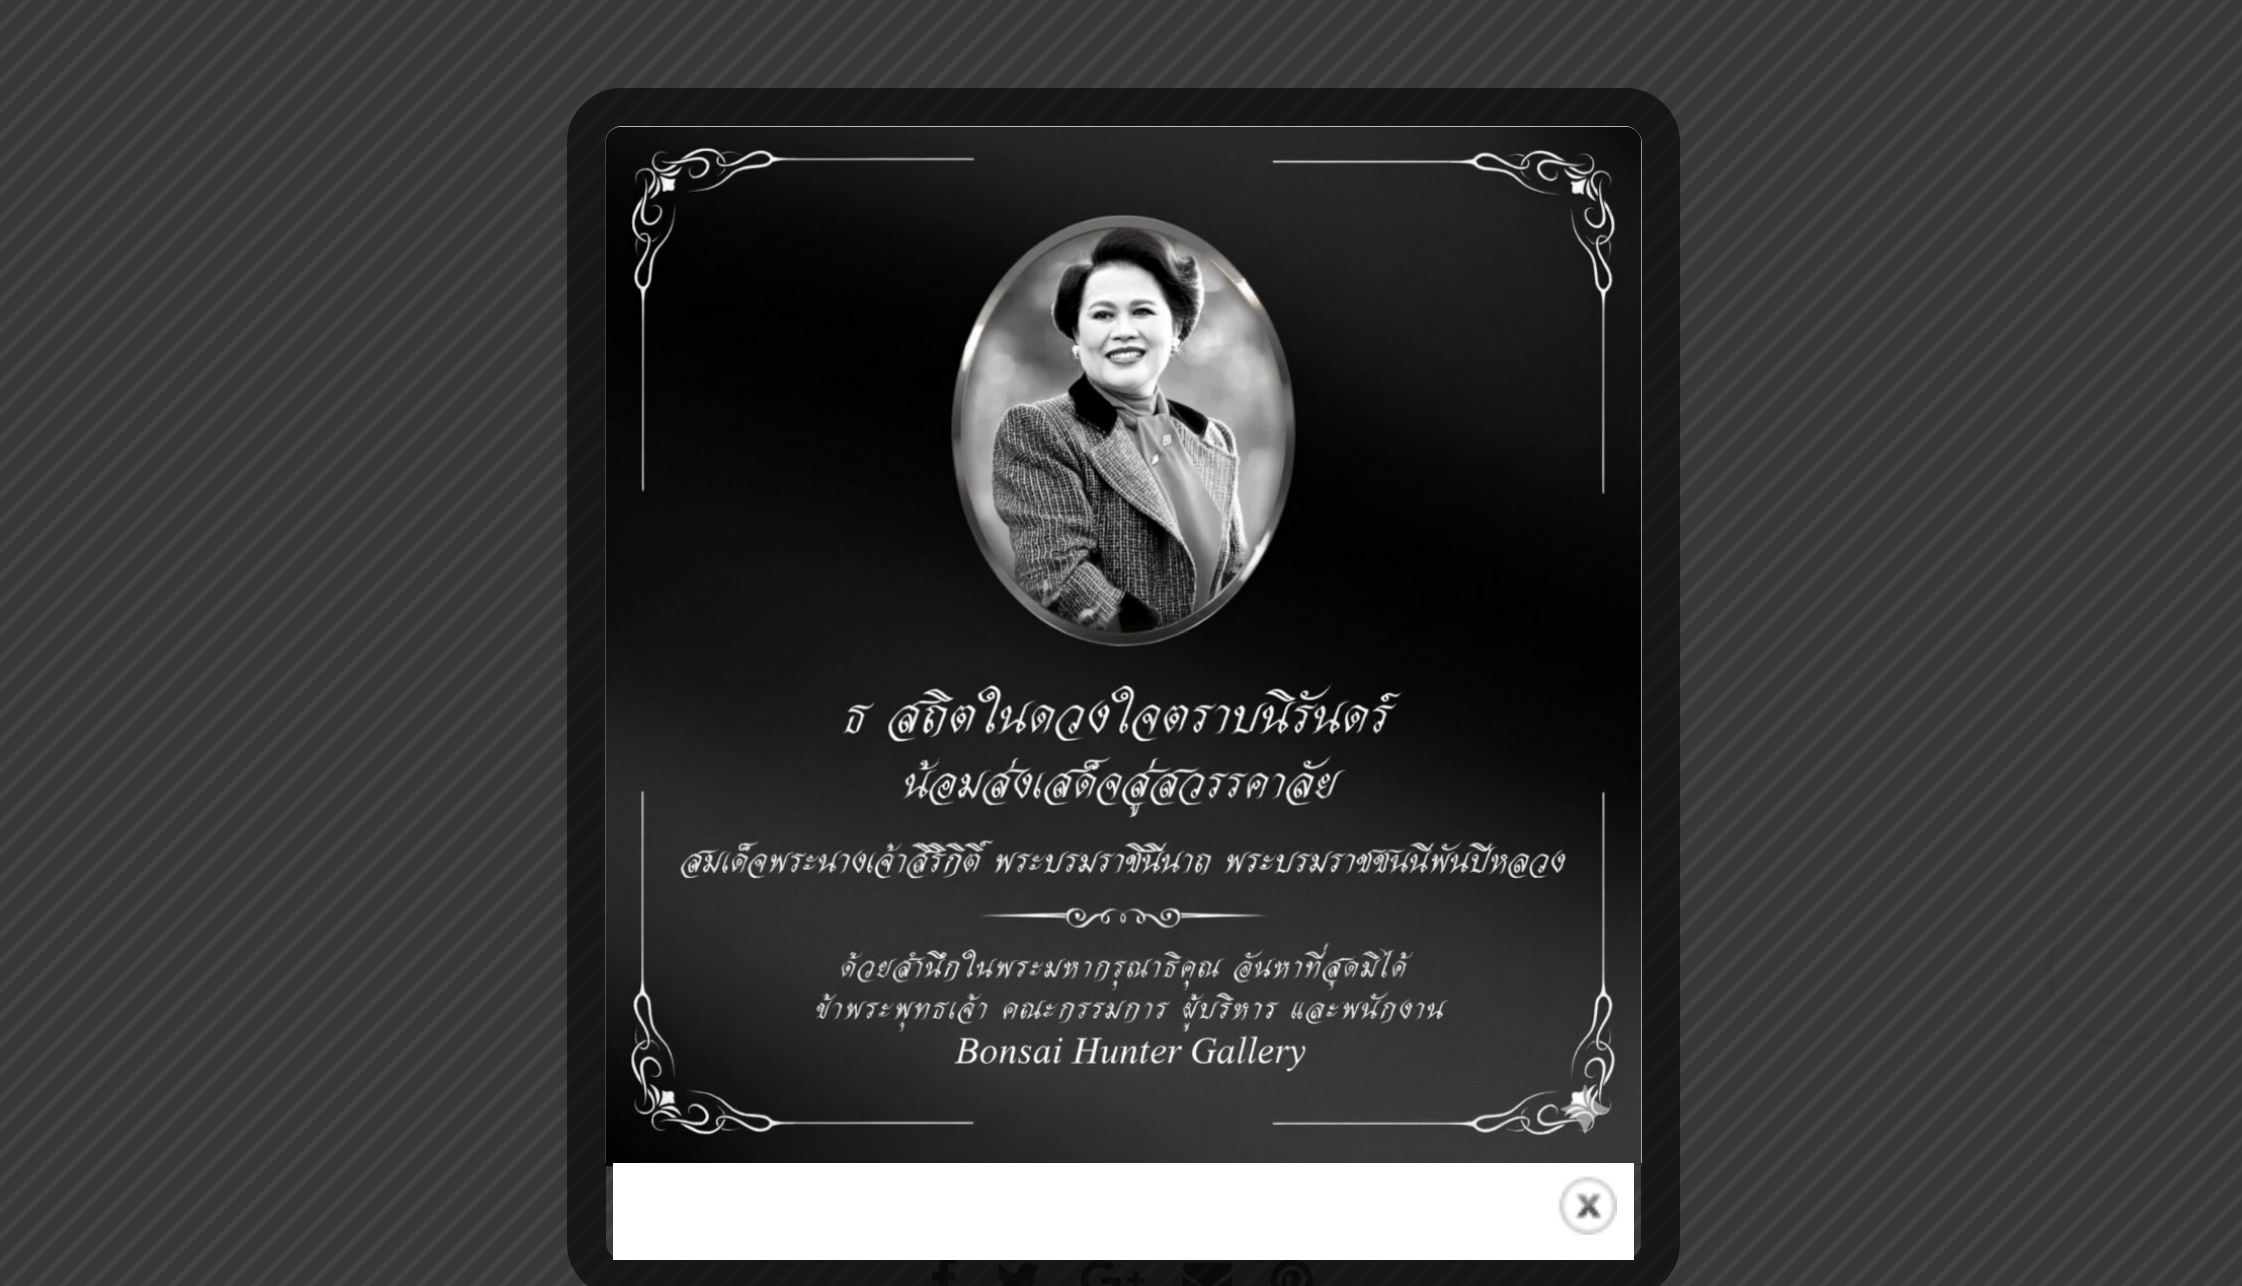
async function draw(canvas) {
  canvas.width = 2242;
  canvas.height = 1286;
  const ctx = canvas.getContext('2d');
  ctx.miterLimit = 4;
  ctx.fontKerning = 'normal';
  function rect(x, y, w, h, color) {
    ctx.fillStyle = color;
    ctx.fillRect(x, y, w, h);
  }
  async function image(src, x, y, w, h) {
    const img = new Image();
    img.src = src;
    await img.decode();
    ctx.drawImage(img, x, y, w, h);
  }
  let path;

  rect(0, 0, 2242, 1286, '#fff');
  ctx.save();
  path = new Path2D('M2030 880H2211V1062H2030ZM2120.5 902C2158.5 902 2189 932.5 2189 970.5V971.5C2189 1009.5 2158.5 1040 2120.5 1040C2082.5 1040 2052 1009.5 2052 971.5V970.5C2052 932.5 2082.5 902 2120.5 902Z');
  ctx.clip(path, 'evenodd');
  ctx.fillStyle = '#0000002b';
  ctx.filter = 'blur(7px)';
  ctx.beginPath();
  ctx.roundRect(2052, 902, 137, 138, 68.5);
  ctx.fill();
  ctx.filter = 'none';
  ctx.restore();
  await image('assets/img4.png', 932, 1260, 24, 26);
  await image('assets/img5.png', 998, 1262, 42, 24);
  await image('assets/img6.png', 1080, 1260, 65, 26);
  await image('assets/img7.png', 1182, 1262, 50, 24);
  await image('assets/img8.png', 1270, 1260, 43, 26);
  await image('assets/img1.png', 0, 0, 2242, 1286);
  ctx.beginPath();
  ctx.roundRect(586.5, 107.5, 1074, 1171, 35.5);
  ctx.strokeStyle = '#00000099';
  ctx.lineWidth = 39;
  ctx.stroke();
  path = new Path2D('M622 126H1625C1634 126 1642 134 1642 143V1163H605V143C605 134 612 126 622 126Z');
  ctx.fill(path);
  await image('assets/img2.png', 605, 126, 1037, 1041);
  rect(613, 1163, 1021, 97, '#fff');
  await image('assets/img3.png', 1558, 1176, 59, 59);
}

draw(document.querySelector('canvas'));
